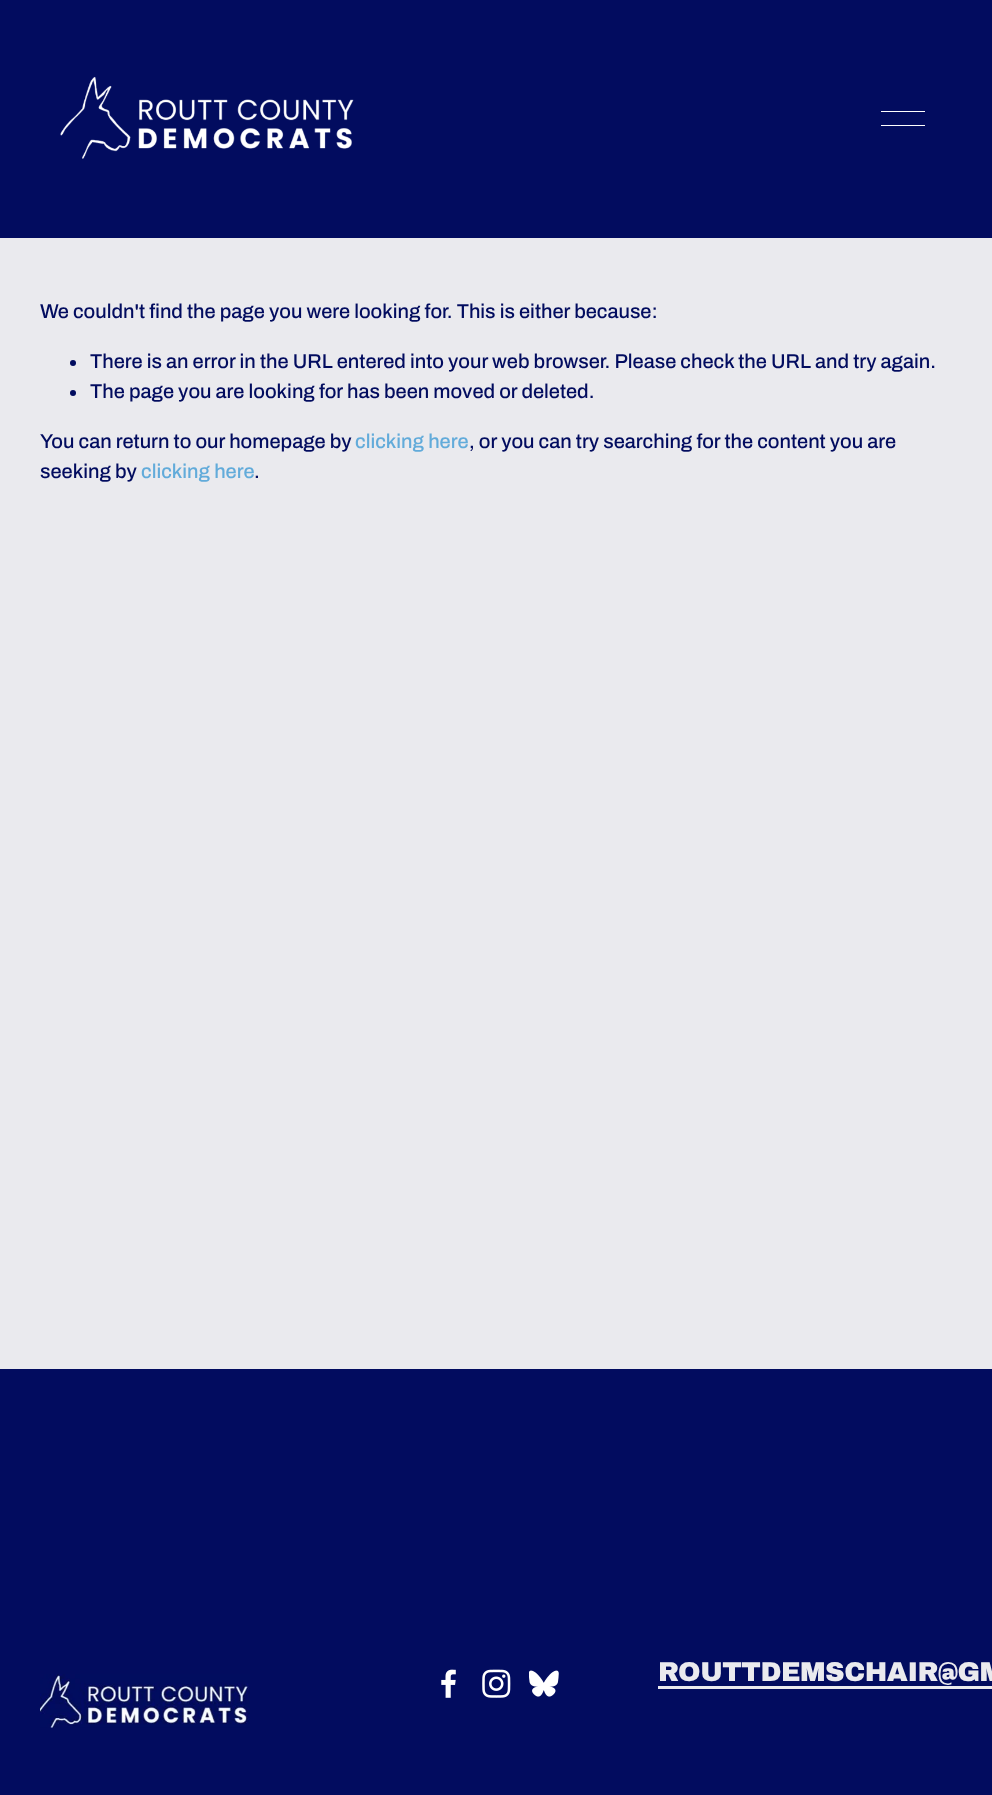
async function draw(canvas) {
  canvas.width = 992;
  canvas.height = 1795;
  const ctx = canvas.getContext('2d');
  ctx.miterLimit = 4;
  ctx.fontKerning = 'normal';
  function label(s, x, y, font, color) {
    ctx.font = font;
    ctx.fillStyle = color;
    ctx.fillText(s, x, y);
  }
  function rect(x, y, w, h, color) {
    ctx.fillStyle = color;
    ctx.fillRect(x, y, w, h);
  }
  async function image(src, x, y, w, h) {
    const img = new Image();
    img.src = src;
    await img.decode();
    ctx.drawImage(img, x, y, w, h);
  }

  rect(0, 0, 992, 1795, '#eaeaee');
  rect(0, 0, 992, 238, '#020c5f');
  await image('assets/img1.png', 60, 76, 294, 83);
  rect(881, 111, 44, 1, '#fff');
  rect(881, 125, 44, 1, '#fff');
  label('We couldn\'t find the page you were looking for. This is either because:', 40, 318, '500 20px Archivo', '#020c5f');
  ctx.beginPath();
  ctx.arc(73, 363, 3, 0, 2 * Math.PI);
  ctx.fill();
  label('There is an error in the URL entered into your web browser. Please check the URL and try again.', 90, 368, '500 20px Archivo', '#020c5f');
  ctx.beginPath();
  ctx.arc(73, 393, 3, 0, 2 * Math.PI);
  ctx.fill();
  label('The page you are looking for has been moved or deleted.', 90, 398, '500 20px Archivo', '#020c5f');
  label('You can return to our homepage by', 40, 448, '500 20px Archivo', '#020c5f');
  label('clicking here', 355, 448, '500 20px Archivo', '#62abda');
  label(', or you can try searching for the content you are', 469, 448, '500 20px Archivo', '#020c5f');
  label('seeking by', 40, 478, '500 20px Archivo', '#020c5f');
  label('clicking here', 141, 478, '500 20px Archivo', '#62abda');
  label('.', 254, 478, '500 20px Archivo', '#020c5f');
  rect(0, 1369, 992, 426, '#020c5f');
  await image('assets/img2.png', 40, 1674, 210, 54);
  await image('assets/img3.png', 441, 1669, 15, 29);
  await image('assets/img4.png', 482, 1669, 29, 29);
  await image('assets/img5.png', 529, 1670, 30, 27);
  ctx.letterSpacing = '-0.5px';
  label('ROUTTDEMSCHAIR@GM', 658, 1681, '900 27.1px Archivo Black', '#eaeaee');
  rect(658, 1686, 334, 3, '#eaeaee');
}

draw(document.querySelector('canvas'));
